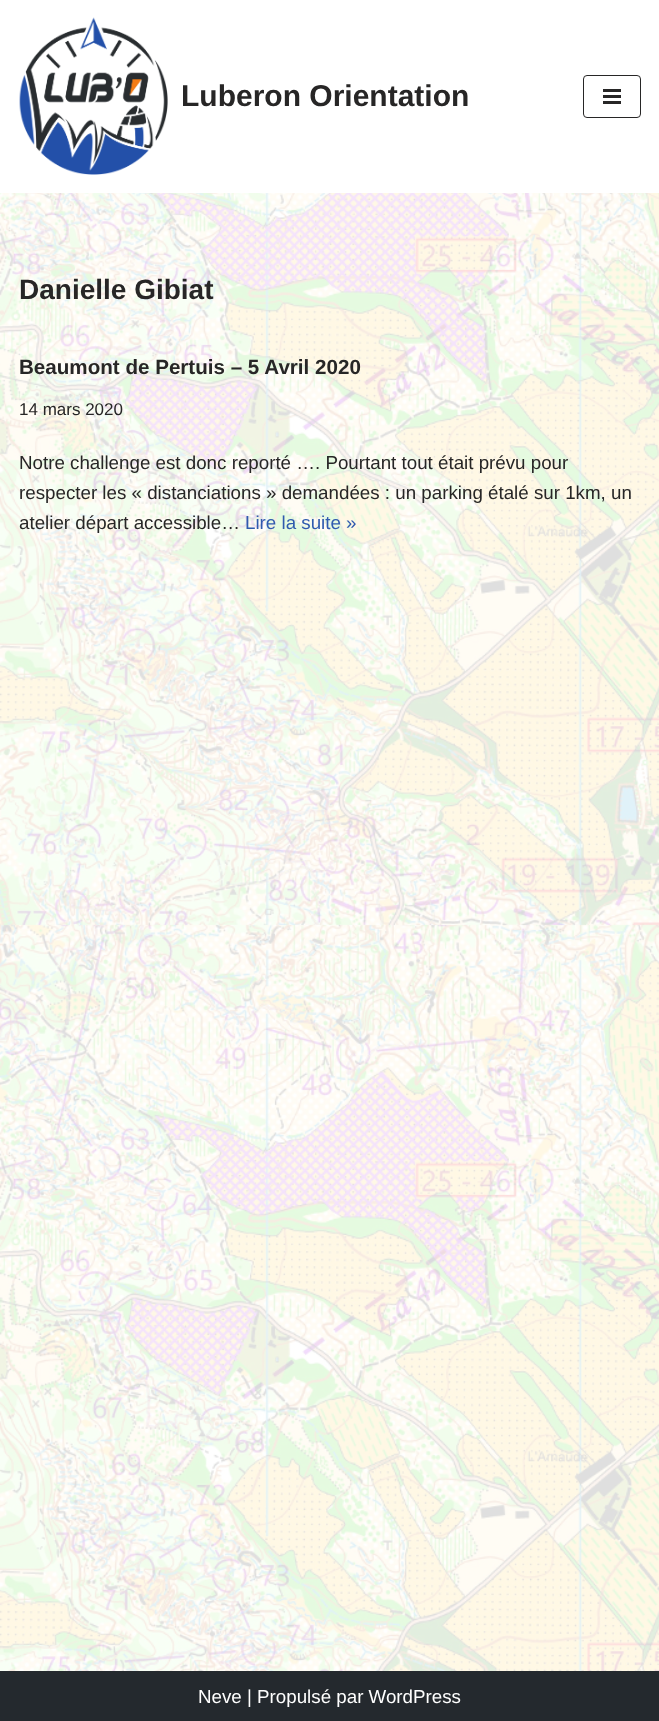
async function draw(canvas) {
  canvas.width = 659;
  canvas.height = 1721;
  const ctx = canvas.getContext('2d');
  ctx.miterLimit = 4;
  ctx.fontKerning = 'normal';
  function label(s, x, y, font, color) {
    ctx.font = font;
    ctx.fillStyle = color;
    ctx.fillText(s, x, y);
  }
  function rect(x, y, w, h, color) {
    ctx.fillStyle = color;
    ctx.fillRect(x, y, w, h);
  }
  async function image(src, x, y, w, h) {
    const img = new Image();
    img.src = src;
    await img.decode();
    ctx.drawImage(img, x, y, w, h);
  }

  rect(0, 0, 659, 1721, '#fff');
  await image('assets/img1.png', 0, 193, 659, 1478);
  await image('assets/img2.png', 19, 17, 149, 158);
  label('Luberon Orientation', 181, 106, 'bold 30px Liberation Sans', '#272626');
  ctx.beginPath();
  ctx.roundRect(583.5, 75.5, 57, 42, 3.5);
  ctx.strokeStyle = '#272626';
  ctx.stroke();
  rect(603, 89, 18, 3, '#272626');
  rect(603, 95, 18, 3, '#272626');
  rect(603, 101, 18, 3, '#272626');
  label('Danielle Gibiat', 19, 299, 'bold 28px Liberation Sans', '#272626');
  label('Beaumont de Pertuis – 5 Avril 2020', 19, 374, 'bold 20.6px Liberation Sans', '#272626');
  label('14 mars 2020', 19, 415, '17px Liberation Sans', '#272626');
  label('Notre challenge est donc reporté …. Pourtant tout était prévu pour', 19, 469, '18.75px Liberation Sans', '#272626');
  label('respecter les « distanciations » demandées : un parking étalé sur 1km, un', 19, 499, '18.75px Liberation Sans', '#272626');
  label('atelier départ accessible…', 19, 529, '18.75px Liberation Sans', '#272626');
  label('Lire la suite »', 245, 529, '18.75px Liberation Sans', '#2f5aae');
  rect(0, 1671, 659, 50, '#24292e');
  label('Neve | Propulsé par WordPress', 198, 1703, '18.75px Liberation Sans', '#fff');
}

draw(document.querySelector('canvas'));
